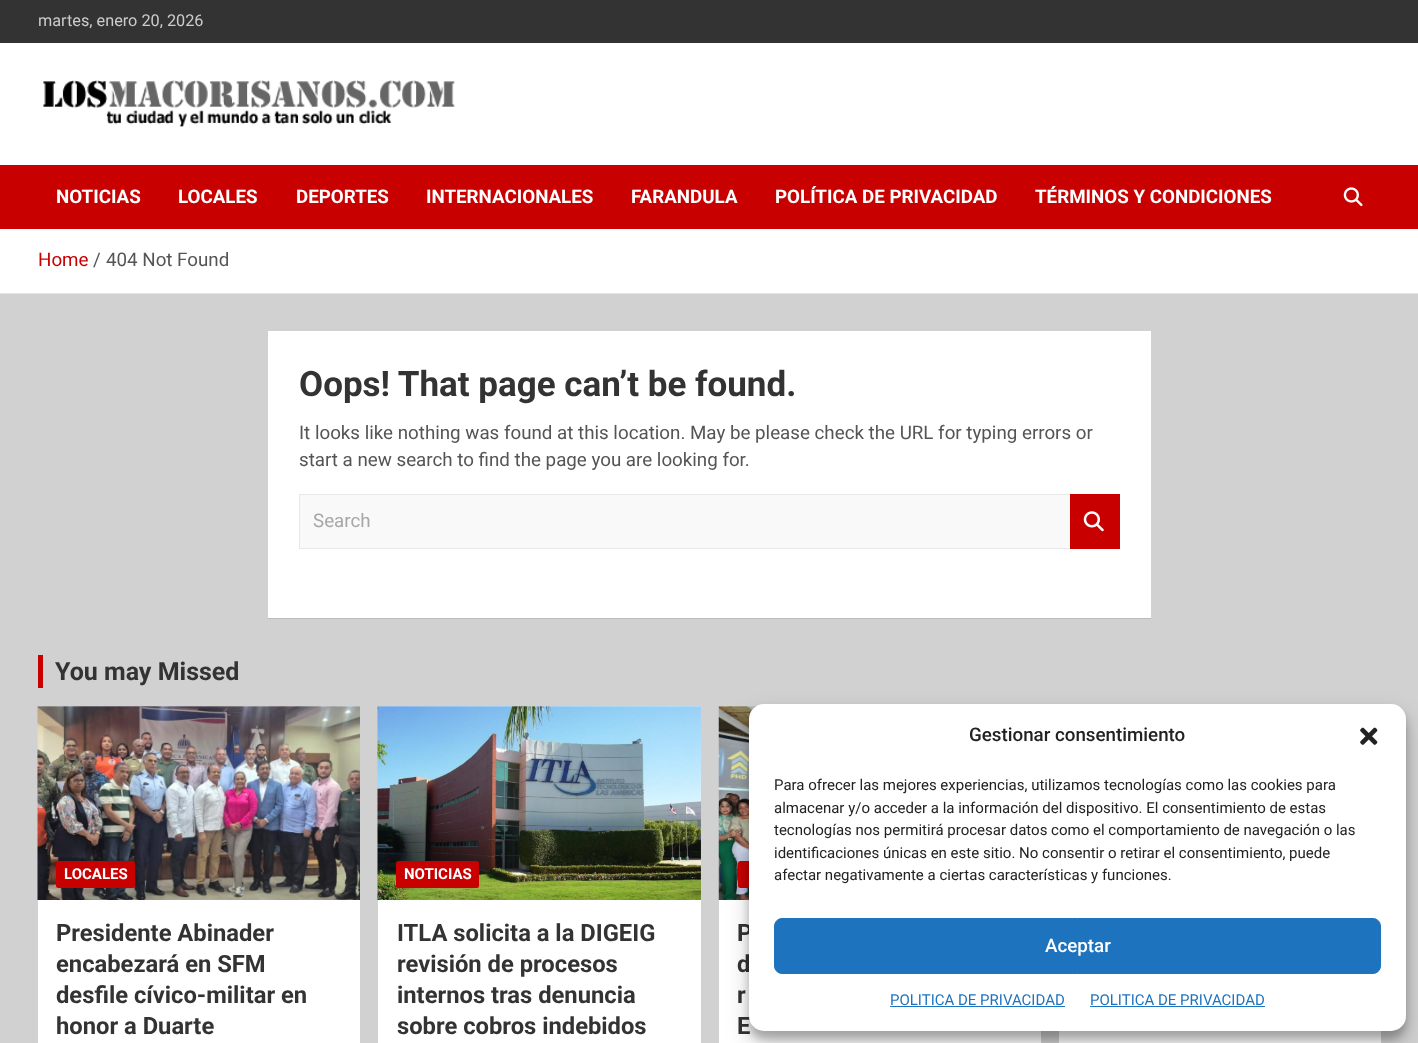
async function draw(canvas) {
  canvas.width = 1418;
  canvas.height = 1043;
  const ctx = canvas.getContext('2d');
  ctx.miterLimit = 4;
  ctx.fontKerning = 'normal';
  function label(s, x, y, font, color) {
    ctx.font = font;
    ctx.fillStyle = color;
    ctx.fillText(s, x, y);
  }
  function rect(x, y, w, h, color) {
    ctx.fillStyle = color;
    ctx.fillRect(x, y, w, h);
  }
  function roundedRect(x, y, w, h, r, color) {
    ctx.fillStyle = color;
    ctx.beginPath();
    ctx.roundRect(x, y, w, h, r);
    ctx.fill();
  }
  async function image(src, x, y, w, h) {
    const img = new Image();
    img.src = src;
    await img.decode();
    ctx.drawImage(img, x, y, w, h);
  }
  let path;

  rect(0, 0, 1418, 1043, '#d1d1d1');
  rect(0, 0, 1418, 43, '#333');
  label('martes, enero 20, 2026', 38, 26, '16.25px Roboto', '#ccc');
  rect(0, 43, 1418, 122, '#fff');
  await image('assets/img1.png', 43, 80, 412, 47);
  rect(0, 165, 1418, 64, '#c80000');
  label('NOTICIAS', 56, 203, 'bold 18.75px Roboto', '#fff');
  label('LOCALES', 178, 203, 'bold 18.75px Roboto', '#fff');
  label('DEPORTES', 296, 203, 'bold 18.75px Roboto', '#fff');
  label('INTERNACIONALES', 426, 203, 'bold 18.75px Roboto', '#fff');
  label('FARANDULA', 631, 203, 'bold 18.75px Roboto', '#fff');
  label('POLÍTICA DE PRIVACIDAD', 775, 203, 'bold 18.75px Roboto', '#fff');
  label('TÉRMINOS Y CONDICIONES', 1035, 203, 'bold 18.75px Roboto', '#fff');
  await image('assets/img2.png', 1343, 187, 20, 20);
  rect(0, 229, 1418, 64, '#fff');
  rect(0, 293, 1418, 1, '#e6e6e6');
  label('Home', 38, 266, '18.75px Roboto', '#c80000');
  label('/', 93, 266, '18.75px Roboto', '#555');
  label('404 Not Found', 106, 266, '18.75px Roboto', '#555');
  ctx.fillStyle = '#0000001a';
  ctx.filter = 'blur(0.5px)';
  ctx.beginPath();
  ctx.rect(268, 333, 883, 286);
  ctx.fill();
  ctx.filter = 'none';
  rect(268, 331, 883, 287, '#fff');
  label('Oops! That page can’t be found.', 299, 396, 'bold 35px Roboto', '#333');
  label('It looks like nothing was found at this location. May be please check the URL for typing errors or', 299, 439, '18.75px Roboto', '#555');
  label('start a new search to find the page you are looking for.', 299, 466, '18.75px Roboto', '#555');
  rect(300, 495, 770, 53, '#f9f9f9');
  ctx.fillStyle = '#e8e8e8';
  path = new Path2D('M299 494H1070V495H300Z');
  ctx.fill(path);
  path = new Path2D('M1070 549H299L300 548H1070Z');
  ctx.fill(path);
  ctx.fillStyle = '#00000017';
  path = new Path2D('M299 549V494L300 495V548Z');
  ctx.fill(path);
  label('Search', 313, 527, '18.75px Roboto', '#a7a7a7');
  rect(1070, 494, 50, 55, '#c80000');
  await image('assets/img3.png', 1083, 511, 21, 21);
  rect(38, 655, 5, 33, '#c80000');
  label('You may Missed', 55, 680, 'bold 25px Roboto', '#333');
  rect(38, 706, 322, 337, '#fff');
  await image('assets/img4.png', 37, 706, 323, 194);
  roundedRect(56, 861, 79, 27, 2.5, '#c80000');
  label('LOCALES', 64, 879, 'bold 15px Roboto', '#fff');
  label('Presidente Abinader', 56, 941, 'bold 23.75px Roboto', '#333');
  label('encabezará en SFM', 56, 972, 'bold 23.75px Roboto', '#333');
  label('desfile cívico-militar en', 56, 1003, 'bold 23.75px Roboto', '#333');
  label('honor a Duarte', 56, 1034, 'bold 23.75px Roboto', '#333');
  rect(378, 706, 323, 337, '#fff');
  await image('assets/img5.png', 377, 706, 324, 194);
  roundedRect(396, 861, 83, 27, 2.5, '#c80000');
  label('NOTICIAS', 404, 879, 'bold 15px Roboto', '#fff');
  label('ITLA solicita a la DIGEIG', 397, 941, 'bold 23.75px Roboto', '#333');
  label('revisión de procesos', 397, 972, 'bold 23.75px Roboto', '#333');
  label('internos tras denuncia', 397, 1003, 'bold 23.75px Roboto', '#333');
  label('sobre cobros indebidos', 397, 1034, 'bold 23.75px Roboto', '#333');
  rect(719, 706, 322, 337, '#fff');
  await image('assets/img6.png', 718, 706, 39, 194);
  roundedRect(738, 861, 82, 27, 2.5, '#c80000');
  label('P', 737, 941, 'bold 23.75px Roboto', '#333');
  label('d', 737, 972, 'bold 23.75px Roboto', '#333');
  label('r', 737, 1003, 'bold 23.75px Roboto', '#333');
  label('E', 737, 1034, 'bold 23.75px Roboto', '#333');
  rect(1059, 1031, 322, 12, '#fff');
  ctx.fillStyle = '#0000003b';
  ctx.filter = 'blur(4px)';
  ctx.beginPath();
  ctx.roundRect(749, 711, 657, 328, 15);
  ctx.fill();
  ctx.filter = 'none';
  ctx.fillStyle = '#00000030';
  ctx.filter = 'blur(12.5px)';
  ctx.beginPath();
  ctx.roundRect(749, 716, 657, 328, 15);
  ctx.fill();
  ctx.filter = 'none';
  roundedRect(749, 704, 657, 327, 15, '#fff');
  label('Gestionar consentimiento', 969, 741, '500 18.75px Roboto', '#222');
  await image('assets/img7.png', 1360, 727, 18, 18);
  label('Para ofrecer las mejores experiencias, utilizamos tecnologías como las cookies para', 774, 790, '15px Roboto', '#222');
  label('almacenar y/o acceder a la información del dispositivo. El consentimiento de estas', 774, 813, '15px Roboto', '#222');
  label('tecnologías nos permitirá procesar datos como el comportamiento de navegación o las', 774, 835, '15px Roboto', '#222');
  label('identificaciones únicas en este sitio. No consentir o retirar el consentimiento, puede', 774, 858, '15px Roboto', '#222');
  label('afectar negativamente a ciertas características y funciones.', 774, 880, '15px Roboto', '#222');
  ctx.fillStyle = '#1e73be';
  ctx.beginPath();
  ctx.roundRect(774.5, 918.5, 606, 55, 7.5);
  ctx.fill();
  ctx.strokeStyle = '#1e73be';
  ctx.stroke();
  label('Aceptar', 1045, 952, '500 18.75px Roboto', '#fff');
  label('POLITICA DE PRIVACIDAD', 890, 1005, '15px Roboto', '#1e73be');
  rect(890, 1006, 175, 1, '#1e73be');
  label('POLITICA DE PRIVACIDAD', 1090, 1005, '15px Roboto', '#1e73be');
  rect(1090, 1006, 175, 1, '#1e73be');
}

draw(document.querySelector('canvas'));
